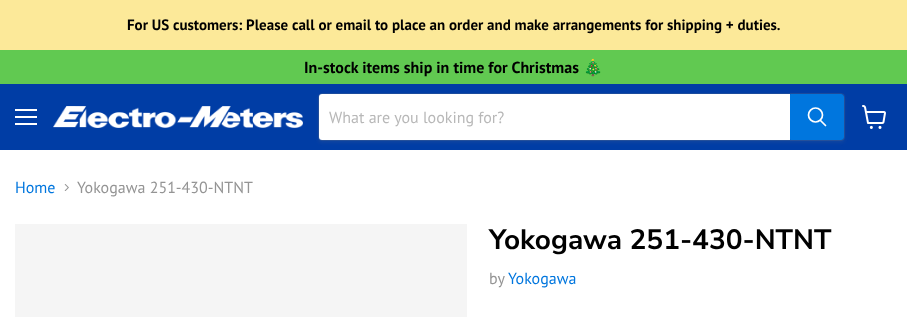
async function draw(canvas) {
  canvas.width = 907;
  canvas.height = 317;
  const ctx = canvas.getContext('2d');
  ctx.miterLimit = 4;
  ctx.fontKerning = 'normal';
  function label(s, x, y, font, color) {
    ctx.font = font;
    ctx.fillStyle = color;
    ctx.fillText(s, x, y);
  }
  function rect(x, y, w, h, color) {
    ctx.fillStyle = color;
    ctx.fillRect(x, y, w, h);
  }
  async function image(src, x, y, w, h) {
    const img = new Image();
    img.src = src;
    await img.decode();
    ctx.drawImage(img, x, y, w, h);
  }
  let path;

  rect(0, 0, 907, 317, '#fff');
  rect(0, 0, 907, 50, '#fce999');
  label('For US customers: Please call or email to place an order and make arrangements for shipping + duties.', 127, 30, 'bold 15px PT Sans', '#000');
  rect(0, 50, 907, 34, '#61c951');
  label('In-stock items ship in time for Christmas', 304, 73, 'bold 16px PT Sans', '#000');
  label('🎄', 583, 73, 'bold 16px Noto Color Emoji', '#000');
  rect(0, 84, 907, 66, '#003da5');
  rect(15, 109, 22, 2, '#fff');
  rect(15, 116, 22, 2, '#fff');
  rect(15, 123, 22, 2, '#fff');
  await image('assets/img1.png', 53, 106, 250, 22);
  ctx.fillStyle = '#8080801c';
  ctx.filter = 'blur(1.5px)';
  ctx.beginPath();
  ctx.roundRect(318, 95, 527, 48, 4);
  ctx.fill();
  ctx.filter = 'none';
  ctx.beginPath();
  ctx.roundRect(318.5, 93.5, 526, 47, 3.5);
  ctx.strokeStyle = '#80808033';
  ctx.stroke();
  ctx.fillStyle = '#fff';
  ctx.beginPath();
  ctx.roundRect(319, 94, 471, 46, [3, 0, 0, 3]);
  ctx.fill();
  label('What are you looking for?', 329, 123, '16px PT Sans', '#b8b8b8');
  ctx.fillStyle = '#0076de';
  ctx.beginPath();
  ctx.roundRect(790.5, 94.5, 53, 45, [0, 2.5, 2.5, 0]);
  ctx.fill();
  ctx.strokeStyle = '#0076de';
  ctx.stroke();
  path = new Path2D('M825.5 125.5L820.5 120.5');
  ctx.strokeStyle = '#fff';
  ctx.lineWidth = 1.7;
  ctx.lineCap = 'round';
  ctx.stroke(path);
  ctx.beginPath();
  ctx.arc(815.5, 115, 7, 0, 2 * Math.PI);
  ctx.stroke();
  await image('assets/img2.png', 862, 105, 24, 24);
  label('Home', 15, 193, '16px PT Sans', '#0076de');
  await image('assets/img3.png', 64, 184, 5, 7);
  label('Yokogawa 251-430-NTNT', 77, 193, '16px PT Sans', '#949494');
  rect(15, 224, 452, 93, '#f5f5f5');
  label('Yokogawa 251-430-NTNT', 489, 249, 'bold 28px Nunito Sans', '#000');
  label('by', 489, 284, '16px PT Sans', '#949494');
  label('Yokogawa', 508, 284, '16px PT Sans', '#0076de');
}

draw(document.querySelector('canvas'));
